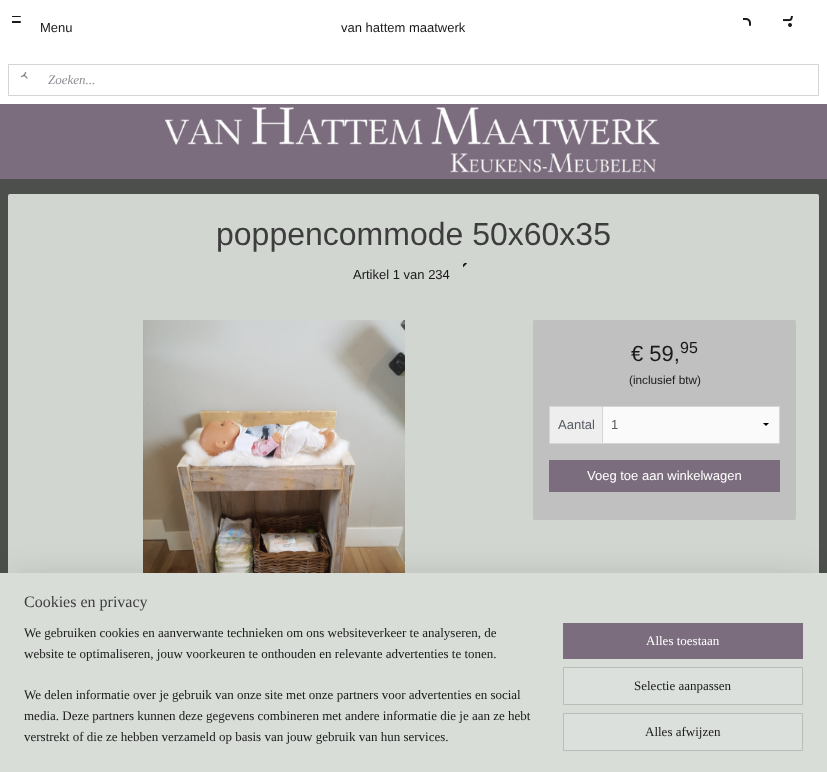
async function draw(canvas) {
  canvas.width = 827;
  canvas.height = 772;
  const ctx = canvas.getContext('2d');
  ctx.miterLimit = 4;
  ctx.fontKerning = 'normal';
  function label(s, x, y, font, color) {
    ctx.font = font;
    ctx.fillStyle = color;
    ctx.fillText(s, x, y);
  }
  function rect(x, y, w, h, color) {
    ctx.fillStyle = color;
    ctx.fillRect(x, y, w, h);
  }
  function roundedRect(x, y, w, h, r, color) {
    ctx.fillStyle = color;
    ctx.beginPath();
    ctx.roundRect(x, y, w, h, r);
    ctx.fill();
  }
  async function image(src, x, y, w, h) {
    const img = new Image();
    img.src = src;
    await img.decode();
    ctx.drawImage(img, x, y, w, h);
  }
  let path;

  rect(0, 0, 827, 772, '#4d4f4d');
  rect(0, 0, 827, 104, '#fff');
  await image('assets/img1.png', 12, 16, 9, 7);
  label('Menu', 40, 32, '13px Liberation Sans', '#1a1a1a');
  label('van hattem maatwerk', 341, 32, '13px Liberation Sans', '#1a1a1a');
  await image('assets/img2.png', 743, 18, 8, 8);
  await image('assets/img3.png', 783, 16, 10, 11);
  rect(0, 104, 827, 75, '#7b6d7e');
  ctx.strokeStyle = '#d3d5d9';
  ctx.strokeRect(8.5, 64.5, 810, 31);
  await image('assets/img4.png', 21, 72, 7, 7);
  label('Zoeken...', 48, 84, 'italic 13px Liberation Serif', '#898c91');
  await image('assets/img5.png', 165, 107, 495, 66);
  roundedRect(8, 194, 811, 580, 2, '#d1d6d0');
  label('poppencommode 50x60x35', 216, 245, '32px Liberation Sans', '#3d3d3d');
  await image('assets/img6.png', 463, 263, 4, 5);
  label('Artikel 1 van 234', 353, 279, '13px Liberation Sans', '#1a1a1a');
  await image('assets/img7.png', 143, 320, 262, 253);
  roundedRect(533, 320, 263, 200, 2, '#c0c0c0');
  label('€ 59,', 631, 361, '22px Liberation Sans', '#1a1a1a');
  label('95', 680, 353, '16px Liberation Sans', '#1a1a1a');
  label('(inclusief btw)', 629, 384, '11.75px Liberation Sans', '#1a1a1a');
  rect(602, 406, 1, 37, '#d3d5d9');
  rect(549, 406, 231, 1, '#d3d5d9');
  rect(779, 406, 1, 38, '#d3d5d9');
  rect(549, 443, 231, 1, '#d3d5d9');
  rect(549, 406, 1, 38, '#d3d5d9');
  rect(550, 407, 52, 36, '#eee');
  label('Aantal', 558, 429, '13px Liberation Sans', '#575b62');
  rect(603, 407, 176, 36, '#fafafa');
  ctx.fillStyle = '#000';
  path = new Path2D('M769 423L766 426L763 423Z');
  ctx.fill(path);
  label('1', 611, 429, '13px Liberation Sans', '#575b62');
  rect(549, 460, 231, 32, '#7b6d7e');
  label('Voeg toe aan winkelwagen', 587, 480, '13px Liberation Sans', '#fff');
  ctx.fillStyle = '#00000033';
  ctx.filter = 'blur(18px)';
  ctx.beginPath();
  ctx.rect(10, 583, 807, 179);
  ctx.fill();
  ctx.filter = 'none';
  rect(0, 573, 827, 199, '#d8ddd8');
  label('Cookies en privacy', 24, 607, '16px Liberation Serif', '#3d3d3d');
  label('We gebruiken cookies en aanverwante technieken om ons websiteverkeer te analyseren, de', 24, 637, '13px Liberation Serif', '#1a1a1a');
  label('website te optimaliseren, jouw voorkeuren te onthouden en relevante advertenties te tonen.', 24, 658, '13px Liberation Serif', '#1a1a1a');
  label('We delen informatie over je gebruik van onze site met onze partners voor advertenties en social', 24, 699, '13px Liberation Serif', '#1a1a1a');
  label('media. Deze partners kunnen deze gegevens combineren met andere informatie die je aan ze hebt', 24, 720, '13px Liberation Serif', '#1a1a1a');
  label('verstrekt of die ze hebben verzameld op basis van jouw gebruik van hun services.', 24, 741, '13px Liberation Serif', '#1a1a1a');
  rect(563, 623, 240, 36, '#7b6d7e');
  label('Alles toestaan', 646, 645, '13px Liberation Serif', '#fff');
  ctx.fillStyle = '#dce0dc';
  ctx.beginPath();
  ctx.rect(563.5, 667.5, 239, 37);
  ctx.fill();
  ctx.strokeStyle = '#b9bcb9';
  ctx.stroke();
  label('Selectie aanpassen', 634, 690, '13px Liberation Serif', '#1a1a1a');
  ctx.fillStyle = '#dce0dc';
  ctx.beginPath();
  ctx.rect(563.5, 713.5, 239, 37);
  ctx.fill();
  ctx.stroke();
  label('Alles afwijzen', 645, 736, '13px Liberation Serif', '#1a1a1a');
}

draw(document.querySelector('canvas'));
